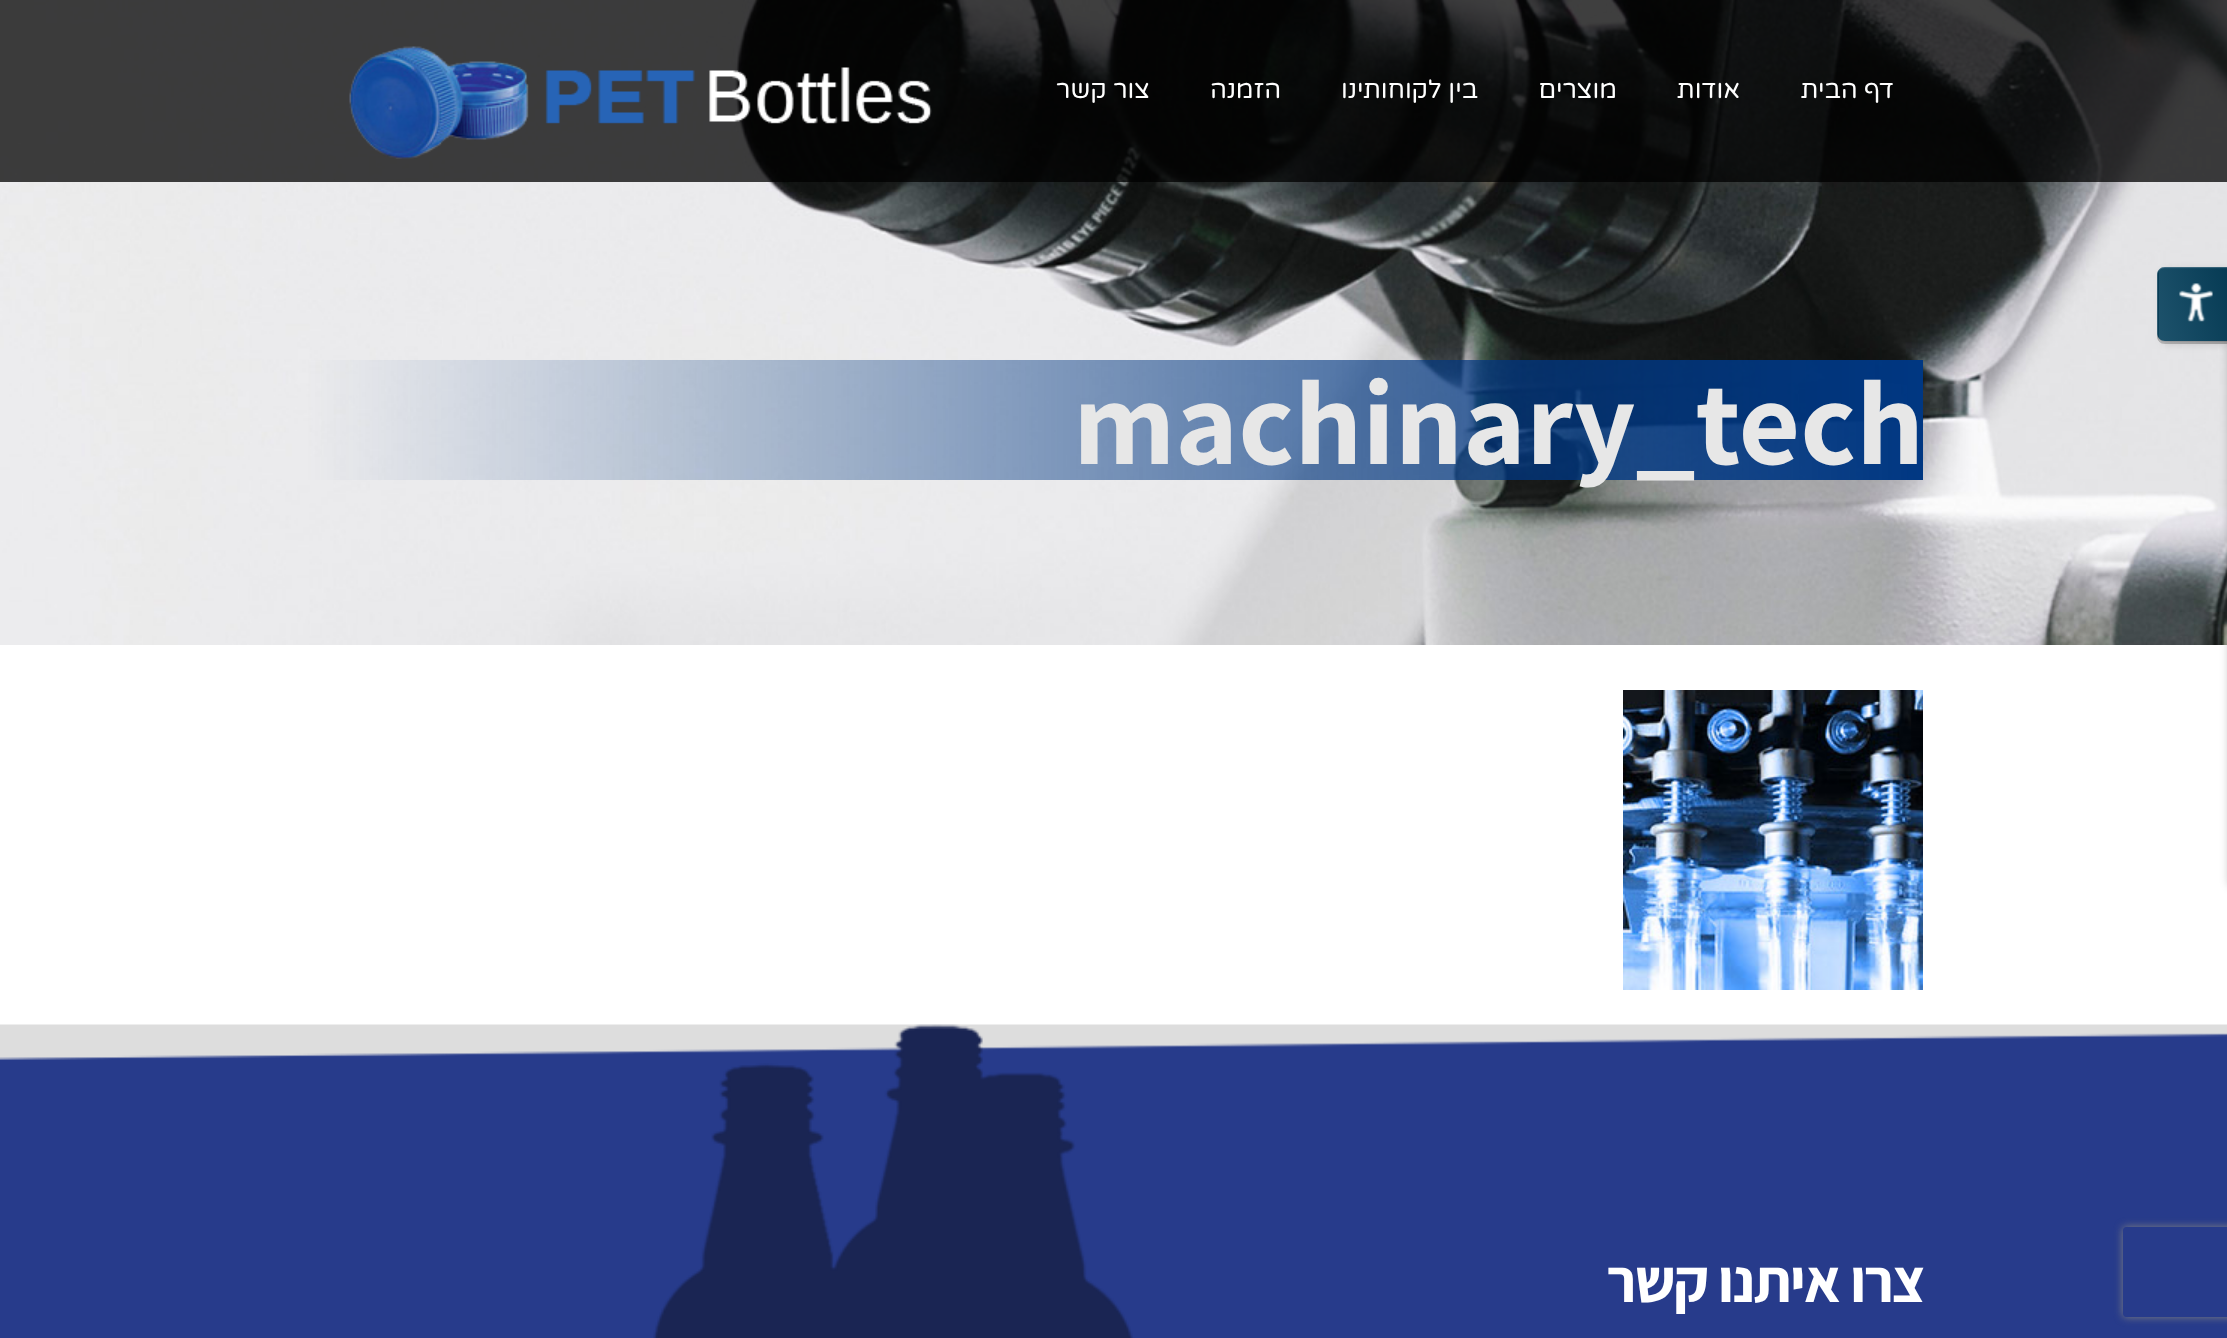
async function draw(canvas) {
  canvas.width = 2227;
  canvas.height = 1338;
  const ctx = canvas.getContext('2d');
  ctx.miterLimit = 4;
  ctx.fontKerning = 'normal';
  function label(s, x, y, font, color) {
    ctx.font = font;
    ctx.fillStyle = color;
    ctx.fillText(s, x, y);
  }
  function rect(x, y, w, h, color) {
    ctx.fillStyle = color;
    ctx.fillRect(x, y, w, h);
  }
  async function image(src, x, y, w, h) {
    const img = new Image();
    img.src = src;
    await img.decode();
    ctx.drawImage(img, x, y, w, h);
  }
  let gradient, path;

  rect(0, 0, 2227, 1338, '#fff');
  await image('assets/img2.png', 0, 0, 2227, 645);
  ctx.fillStyle = '#00000024';
  ctx.filter = 'blur(4px)';
  ctx.beginPath();
  ctx.roundRect(2162, 270, 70, 74, 8);
  ctx.fill();
  ctx.filter = 'none';
  ctx.fillStyle = '#00010133';
  ctx.filter = 'blur(4px)';
  ctx.beginPath();
  ctx.roundRect(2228, 275, 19, 613, 8);
  ctx.fill();
  ctx.filter = 'none';
  ctx.fillStyle = '#095a81';
  path = new Path2D('M2165 267H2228V341H2165C2160.5 341 2157 337.5 2157 333V275C2157 270.5 2160.5 267 2165 267Z');
  ctx.fill(path);
  ctx.save();
  path = new Path2D('M2165 267H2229V344H2165C2160.5 344 2157 340.5 2157 336V275C2157 270.5 2160.5 267 2165 267Z');
  ctx.clip(path);
  gradient = ctx.createLinearGradient(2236, 221, 2152, 243);
  gradient.addColorStop(0.01, '#00000059');
  gradient.addColorStop(0.98, '#43434359');
  ctx.fillStyle = gradient;
  ctx.fillRect(2159, 267, 68, 2);
  gradient = ctx.createLinearGradient(2165, 294, 2081, 316);
  gradient.addColorStop(0.01, '#00000059');
  gradient.addColorStop(0.98, '#43434359');
  ctx.fillStyle = gradient;
  ctx.fillRect(2157, 269, 2, 73);
  ctx.restore();
  gradient = ctx.createLinearGradient(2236, 294, 2152, 316);
  gradient.addColorStop(0.01, '#00000059');
  gradient.addColorStop(0.98, '#43434359');
  ctx.fillStyle = gradient;
  ctx.fillRect(2159, 269, 68, 73);
  ctx.save();
  path = new Path2D('M2165 267H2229V344H2165C2160.5 344 2157 340.5 2157 336V275C2157 270.5 2160.5 267 2165 267Z');
  ctx.clip(path);
  gradient = ctx.createLinearGradient(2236, 368, 2152, 390);
  gradient.addColorStop(0.01, '#00000059');
  gradient.addColorStop(0.98, '#43434359');
  ctx.fillStyle = gradient;
  ctx.fillRect(2159, 342, 68, 2);
  ctx.restore();
  ctx.fillStyle = '#ffffff2b';
  path = new Path2D('M2164 267H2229V344H2164C2160 344 2157 340 2157 336V274C2157 270 2160 267 2164 267ZM2164 268H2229V342H2164C2161 342 2158 339 2158 336V274C2158 271 2161 268 2164 268Z');
  ctx.fill(path, 'evenodd');
  await image('assets/img1.png', 2179, 283, 34, 39);
  rect(0, 0, 2227, 182, '#000000bf');
  ctx.direction = 'rtl';
  label('דף הבית', 1894, 98, '25.5px Varela Round', '#fff');
  label('אודות', 1740, 98, '25.5px Varela Round', '#fff');
  label('מוצרים', 1617, 98, '25.5px Varela Round', '#fff');
  label('בין לקוחותינו', 1478, 98, '25.5px Varela Round', '#fff');
  label('הזמנה', 1281, 98, '25.5px Varela Round', '#fff');
  label('צור קשר', 1150, 98, '25.5px Varela Round', '#fff');
  await image('assets/img3.png', 349, 46, 583, 113);
  ctx.direction = 'ltr';
  label('machinary_tech', 1073, 464, 'bold 120px Assistant', '#e7e7e7');
  await image('assets/img4.png', 1623, 690, 300, 300);
  rect(0, 1033, 2227, 305, '#273b8b');
  await image('assets/img5.png', 0, 1024, 2227, 314);
  ctx.letterSpacing = '-1.5px';
  ctx.direction = 'rtl';
  label('צרו איתנו קשר', 1924, 1302, 'bold 60px Assistant', '#fff');
  ctx.save();
  path = new Path2D('M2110 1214H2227V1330H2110ZM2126 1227H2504C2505.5 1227 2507 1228.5 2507 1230V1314C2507 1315.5 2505.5 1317 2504 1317H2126C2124.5 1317 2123 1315.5 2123 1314V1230C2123 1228.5 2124.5 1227 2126 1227Z');
  ctx.clip(path, 'evenodd');
  ctx.fillStyle = '#808080';
  ctx.filter = 'blur(4px)';
  ctx.beginPath();
  ctx.roundRect(2123, 1227, 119, 90, 3);
  ctx.fill();
  ctx.filter = 'none';
  ctx.restore();
}

draw(document.querySelector('canvas'));
